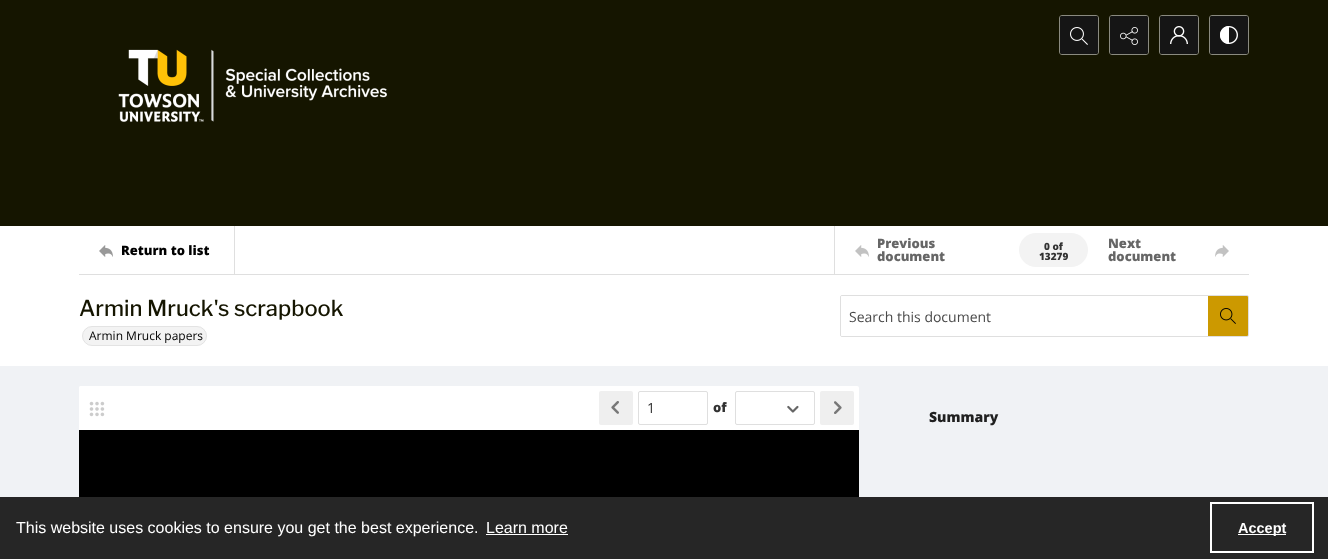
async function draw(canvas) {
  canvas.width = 1328;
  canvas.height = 559;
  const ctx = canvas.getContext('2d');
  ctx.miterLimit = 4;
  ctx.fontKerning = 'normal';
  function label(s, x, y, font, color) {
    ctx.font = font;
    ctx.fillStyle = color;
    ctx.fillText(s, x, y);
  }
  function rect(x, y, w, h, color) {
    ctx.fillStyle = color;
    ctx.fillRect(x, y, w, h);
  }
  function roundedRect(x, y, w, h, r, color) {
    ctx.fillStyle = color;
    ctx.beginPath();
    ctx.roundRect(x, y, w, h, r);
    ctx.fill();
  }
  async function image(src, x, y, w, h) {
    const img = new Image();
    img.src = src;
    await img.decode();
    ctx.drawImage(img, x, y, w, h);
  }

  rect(0, 0, 1328, 559, '#fff');
  rect(0, 0, 1328, 226, '#151500');
  ctx.beginPath();
  ctx.roundRect(1059.5, 15.5, 39, 39, 2.5);
  ctx.strokeStyle = '#8a8a80';
  ctx.stroke();
  roundedRect(1060, 16, 38, 38, 2, '#151515');
  await image('assets/img1.png', 1070, 27, 18, 18);
  ctx.beginPath();
  ctx.roundRect(1109.5, 15.5, 39, 39, 2.5);
  ctx.stroke();
  roundedRect(1110, 16, 38, 38, 2, '#151515');
  await image('assets/img2.png', 1120, 27, 18, 18);
  ctx.beginPath();
  ctx.roundRect(1159.5, 15.5, 39, 39, 2.5);
  ctx.stroke();
  roundedRect(1160, 16, 38, 38, 2, '#151515');
  await image('assets/img3.png', 1170, 26, 18, 18);
  ctx.beginPath();
  ctx.roundRect(1209.5, 15.5, 39, 39, 2.5);
  ctx.stroke();
  roundedRect(1210, 16, 38, 38, 2, '#151515');
  await image('assets/img4.png', 1220, 26, 18, 18);
  await image('assets/img5.png', 118, 49, 269, 73);
  rect(79, 274, 1170, 1, '#dfdfdf');
  await image('assets/img6.png', 99, 245, 14, 12);
  label('Return to list', 121, 255, '800 13px Open Sans', '#000');
  rect(234, 226, 1, 48, '#dfdfdf');
  rect(834, 226, 1, 48, '#dfdfdf');
  await image('assets/img7.png', 855, 245, 14, 12);
  label('Previous', 877, 248, '800 13px Open Sans', '#666');
  label('document', 877, 261, '800 13px Open Sans', '#666');
  roundedRect(1019, 233, 69, 34, 17, '#f3f3f3');
  label('0 of', 1044, 250, '800 10px Open Sans', '#323232');
  label('13279', 1039, 260, '800 10px Open Sans', '#323232');
  label('Next', 1108, 248, '800 13px Open Sans', '#666');
  label('document', 1108, 261, '800 13px Open Sans', '#666');
  await image('assets/img8.png', 1215, 245, 14, 12);
  rect(0, 366, 1328, 131, '#f0f2f5');
  label('Armin Mruck\'s scrapbook', 79, 316, '500 22px Libre Franklin', '#151500');
  ctx.fillStyle = '#f3f3f3';
  ctx.beginPath();
  ctx.roundRect(82.5, 326.5, 124, 19, 9.5);
  ctx.fill();
  ctx.strokeStyle = '#e3e3e3';
  ctx.stroke();
  label('Armin Mruck papers', 89, 340, '12px Open Sans', '#000');
  ctx.beginPath();
  ctx.roundRect(840.5, 295.5, 408, 41, 1.5);
  ctx.strokeStyle = '#dfdfdf';
  ctx.stroke();
  ctx.fillStyle = '#fff';
  ctx.beginPath();
  ctx.roundRect(841, 296, 367, 40, [1, 0, 0, 1]);
  ctx.fill();
  label('Search this document', 849, 322, '14px Open Sans', '#4a4a4a');
  ctx.fillStyle = '#c90';
  ctx.beginPath();
  ctx.roundRect(1208, 296, 40, 40, [0, 1, 1, 0]);
  ctx.fill();
  await image('assets/img9.png', 1220, 308, 16, 16);
  ctx.fillStyle = '#fff';
  ctx.beginPath();
  ctx.roundRect(79, 386, 780, 44, [2, 2, 0, 0]);
  ctx.fill();
  ctx.beginPath();
  ctx.roundRect(79, 386, 150, 44, [2, 0, 0, 0]);
  ctx.fill();
  await image('assets/img10.png', 89, 401, 16, 16);
  roundedRect(599, 391, 34, 34, 2, '#efefef');
  await image('assets/img11.png', 611, 401, 8, 13);
  ctx.beginPath();
  ctx.roundRect(638.5, 391.5, 69, 33, 1.5);
  ctx.stroke();
  label('1', 647, 413, '14px Open Sans', '#323232');
  label('of', 713, 412, '800 13px Open Sans', '#323232');
  await image('assets/img12.png', 787, 405, 12, 8);
  ctx.beginPath();
  ctx.roundRect(735.5, 391.5, 79, 33, 1.5);
  ctx.stroke();
  roundedRect(820, 391, 34, 34, 2, '#efefef');
  await image('assets/img13.png', 834, 401, 8, 13);
  rect(79, 430, 780, 67, '#000');
  label('Summary', 929, 422, '800 14px Open Sans', '#202020');
  rect(0, 497, 1328, 62, '#262626');
  label('This website uses cookies to ensure you get the best experience.', 16, 533, '16px Liberation Sans', '#fff');
  label('Learn more', 486, 533, '16px Liberation Sans', '#fff');
  rect(486, 534, 82, 1, '#fff');
  ctx.strokeStyle = '#fff';
  ctx.lineWidth = 2;
  ctx.strokeRect(1211, 503, 102, 49);
  rect(1238, 534, 48, 1, '#fff');
  label('Accept', 1238, 533, 'bold 14.5px Liberation Sans', '#fff');
}

draw(document.querySelector('canvas'));
